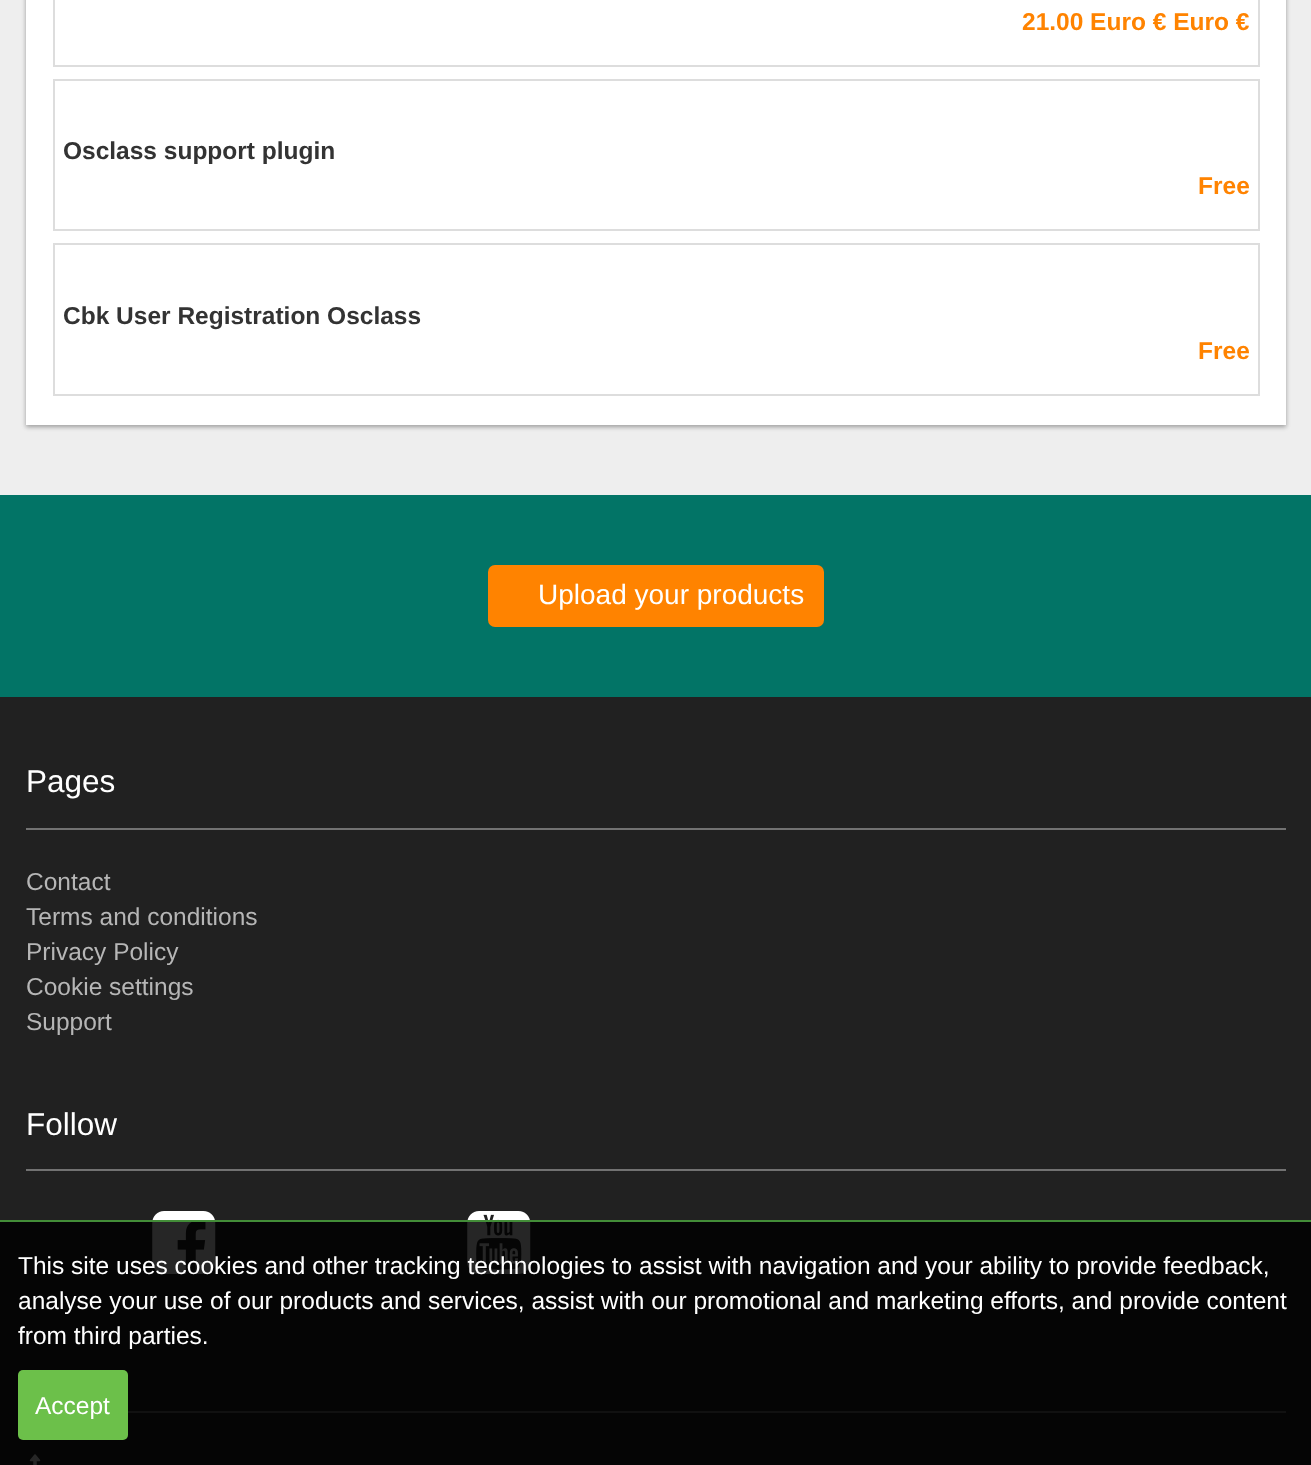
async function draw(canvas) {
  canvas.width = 1311;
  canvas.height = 1465;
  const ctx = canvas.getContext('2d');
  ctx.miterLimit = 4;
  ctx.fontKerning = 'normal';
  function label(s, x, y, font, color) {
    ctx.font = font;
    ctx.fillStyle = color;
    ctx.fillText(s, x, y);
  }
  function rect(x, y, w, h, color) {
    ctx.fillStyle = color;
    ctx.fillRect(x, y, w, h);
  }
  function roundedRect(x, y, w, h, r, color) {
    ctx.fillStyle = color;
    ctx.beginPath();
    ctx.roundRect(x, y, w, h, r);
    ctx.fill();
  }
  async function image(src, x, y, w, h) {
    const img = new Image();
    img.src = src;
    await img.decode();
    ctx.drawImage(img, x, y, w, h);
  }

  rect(0, 0, 1311, 1465, '#eee');
  ctx.fillStyle = '#0000003d';
  ctx.filter = 'blur(2px)';
  ctx.beginPath();
  ctx.rect(26, -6, 1260, 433);
  ctx.fill();
  ctx.filter = 'none';
  ctx.fillStyle = '#0000001f';
  ctx.filter = 'blur(2.5px)';
  ctx.beginPath();
  ctx.rect(26, -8, 1260, 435);
  ctx.fill();
  ctx.filter = 'none';
  rect(26, 0, 1260, 425, '#fff');
  ctx.strokeStyle = '#ddd';
  ctx.lineWidth = 2;
  ctx.strokeRect(54, -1, 1205, 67);
  label('21.00 Euro € Euro €', 1022, 30, 'bold 24.5px Liberation Sans', '#ff8300');
  ctx.strokeRect(54, 80, 1205, 150);
  label('Osclass support plugin', 63, 159, 'bold 24.5px Liberation Sans', '#333');
  label('Free', 1198, 194, 'bold 24.5px Liberation Sans', '#ff8300');
  ctx.strokeRect(54, 244, 1205, 151);
  label('Cbk User Registration Osclass', 63, 324, 'bold 24.5px Liberation Sans', '#333');
  label('Free', 1198, 359, 'bold 24.5px Liberation Sans', '#ff8300');
  rect(0, 495, 1311, 202, '#027466');
  roundedRect(488, 565, 336, 62, 7, '#ff8300');
  label('Upload your products', 538, 604, '28px Liberation Sans', '#fff');
  rect(0, 697, 1311, 768, '#212121');
  rect(26, 828, 1260, 2, '#727272');
  label('Pages', 26, 792, '31.5px Liberation Sans', '#fff');
  label('Contact', 26, 890, '24.5px Liberation Sans', '#b6b6b6');
  label('Terms and conditions', 26, 925, '24.5px Liberation Sans', '#b6b6b6');
  label('Privacy Policy', 26, 960, '24.5px Liberation Sans', '#b6b6b6');
  label('Cookie settings', 26, 995, '24.5px Liberation Sans', '#b6b6b6');
  label('Support', 26, 1030, '24.5px Liberation Sans', '#b6b6b6');
  rect(26, 1169, 1260, 2, '#727272');
  label('Follow', 26, 1135, '31.5px Liberation Sans', '#fff');
  await image('assets/img1.png', 152, 1211, 64, 63);
  await image('assets/img2.png', 467, 1211, 64, 63);
  rect(128, 1411, 1158, 2, '#727272');
  await image('assets/img3.png', 29, 1454, 12, 11);
  rect(0, 1222, 1311, 243, '#000000d9');
  rect(0, 1220, 1311, 2, '#438d38');
  label('This site uses cookies and other tracking technologies to assist with navigation and your ability to provide feedback,', 18, 1274, '24.5px Liberation Sans', '#fff');
  label('analyse your use of our products and services, assist with our promotional and marketing efforts, and provide content', 18, 1309, '24.5px Liberation Sans', '#fff');
  label('from third parties.', 18, 1344, '24.5px Liberation Sans', '#fff');
  roundedRect(18, 1370, 110, 70, 5, '#6cc04a');
  label('Accept', 35, 1414, '24.5px Liberation Sans', '#fff');
}

draw(document.querySelector('canvas'));
